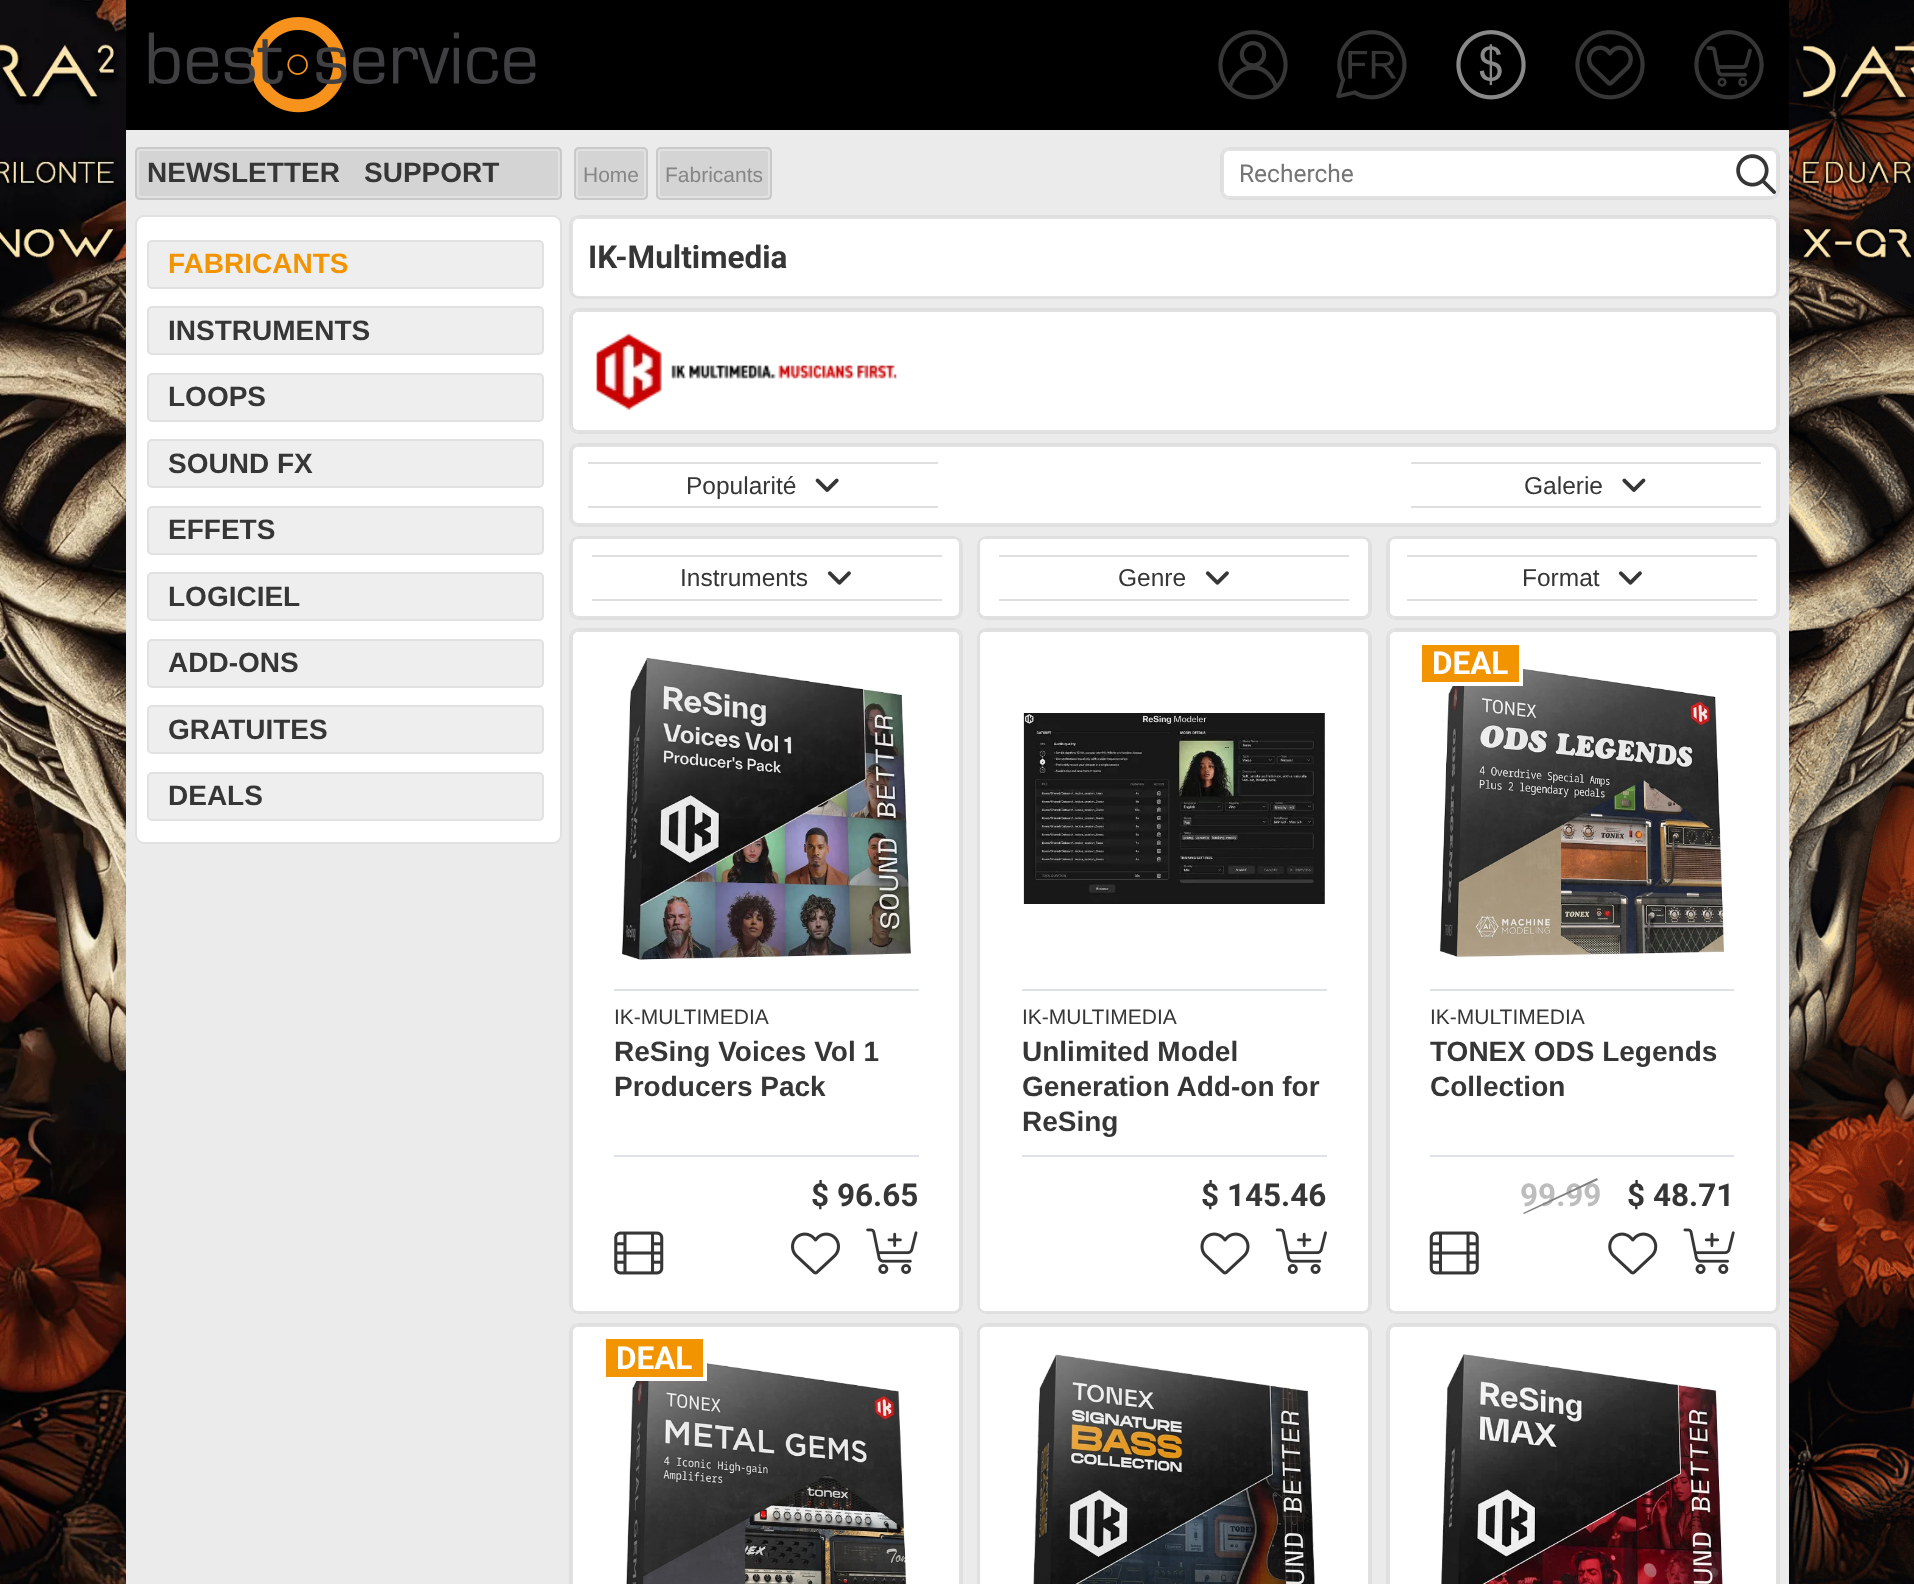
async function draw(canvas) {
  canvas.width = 1914;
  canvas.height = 1584;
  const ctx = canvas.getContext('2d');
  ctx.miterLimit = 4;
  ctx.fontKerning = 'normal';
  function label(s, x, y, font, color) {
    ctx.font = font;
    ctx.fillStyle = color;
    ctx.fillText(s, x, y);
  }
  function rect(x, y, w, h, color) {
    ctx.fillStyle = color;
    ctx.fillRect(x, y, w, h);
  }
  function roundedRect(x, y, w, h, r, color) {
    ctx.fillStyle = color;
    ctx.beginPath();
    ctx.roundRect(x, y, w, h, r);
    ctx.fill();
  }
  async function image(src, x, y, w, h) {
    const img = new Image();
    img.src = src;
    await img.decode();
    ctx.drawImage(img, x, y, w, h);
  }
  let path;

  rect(0, 0, 1914, 1584, '#000');
  await image('assets/img1.png', 0, 0, 126, 1584);
  await image('assets/img2.png', 148, 17, 388, 96);
  await image('assets/img3.png', 1218, 30, 70, 70);
  await image('assets/img4.png', 1336, 30, 71, 70);
  await image('assets/img5.png', 1456, 30, 70, 70);
  await image('assets/img6.png', 1575, 30, 70, 70);
  await image('assets/img7.png', 1694, 30, 70, 70);
  rect(126, 130, 1663, 1454, '#ebebeb');
  roundedRect(135, 147, 427, 53, 5, '#d4d4d4');
  ctx.beginPath();
  ctx.roundRect(138, 150, 421, 47, 3);
  ctx.strokeStyle = '#e2e1e1';
  ctx.lineWidth = 2;
  ctx.stroke();
  ctx.beginPath();
  ctx.roundRect(136, 148, 425, 51, 4);
  ctx.strokeStyle = '#c9c9c9';
  ctx.stroke();
  label('NEWSLETTER', 147, 182, 'bold 28px Liberation Sans', '#363636');
  label('SUPPORT', 364, 182, 'bold 28px Liberation Sans', '#363636');
  roundedRect(574, 147, 74, 53, 5, '#d4d4d4');
  ctx.beginPath();
  ctx.roundRect(577, 150, 68, 47, 3);
  ctx.strokeStyle = '#e2e1e1';
  ctx.stroke();
  ctx.beginPath();
  ctx.roundRect(575, 148, 72, 51, 4);
  ctx.strokeStyle = '#c9c9c9';
  ctx.stroke();
  label('Home', 583, 182, '21px Liberation Sans', '#868686');
  roundedRect(656, 147, 116, 53, 5, '#d4d4d4');
  ctx.beginPath();
  ctx.roundRect(659, 150, 110, 47, 3);
  ctx.strokeStyle = '#e2e1e1';
  ctx.stroke();
  ctx.beginPath();
  ctx.roundRect(657, 148, 114, 51, 4);
  ctx.strokeStyle = '#c9c9c9';
  ctx.stroke();
  label('Fabricants', 665, 182, '21px Liberation Sans', '#868686');
  roundedRect(1220, 147, 560, 53, 9, '#fff');
  ctx.beginPath();
  ctx.roundRect(1223, 150, 554, 47, 6);
  ctx.strokeStyle = '#e2e1e1';
  ctx.stroke();
  ctx.beginPath();
  ctx.roundRect(1221, 148, 558, 51, 8);
  ctx.strokeStyle = '#dfdfdf';
  ctx.stroke();
  label('Recherche', 1239, 182, '24.5px Roboto', '#757575');
  await image('assets/img8.png', 1736, 154, 40, 40);
  ctx.fillStyle = '#fff';
  ctx.beginPath();
  ctx.roundRect(136, 216, 425, 627, 8);
  ctx.fill();
  ctx.strokeStyle = '#e2e1e1';
  ctx.stroke();
  ctx.fillStyle = '#eee';
  ctx.beginPath();
  ctx.roundRect(148, 241, 395, 47, 4);
  ctx.fill();
  ctx.stroke();
  label('FABRICANTS', 168, 273, 'bold 28px Liberation Sans', '#f29400');
  ctx.fillStyle = '#eee';
  ctx.beginPath();
  ctx.roundRect(148, 307, 395, 47, 4);
  ctx.fill();
  ctx.stroke();
  label('INSTRUMENTS', 168, 340, 'bold 28px Liberation Sans', '#363636');
  ctx.fillStyle = '#eee';
  ctx.beginPath();
  ctx.roundRect(148, 374, 395, 47, 4);
  ctx.fill();
  ctx.stroke();
  label('LOOPS', 168, 406, 'bold 28px Liberation Sans', '#363636');
  ctx.fillStyle = '#eee';
  ctx.beginPath();
  ctx.roundRect(148, 440, 395, 47, 4);
  ctx.fill();
  ctx.stroke();
  label('SOUND FX', 168, 473, 'bold 28px Liberation Sans', '#363636');
  ctx.fillStyle = '#eee';
  ctx.beginPath();
  ctx.roundRect(148, 507, 395, 47, 4);
  ctx.fill();
  ctx.stroke();
  label('EFFETS', 168, 539, 'bold 28px Liberation Sans', '#363636');
  ctx.fillStyle = '#eee';
  ctx.beginPath();
  ctx.roundRect(148, 573, 395, 47, 4);
  ctx.fill();
  ctx.stroke();
  label('LOGICIEL', 168, 606, 'bold 28px Liberation Sans', '#363636');
  ctx.fillStyle = '#eee';
  ctx.beginPath();
  ctx.roundRect(148, 640, 395, 47, 4);
  ctx.fill();
  ctx.stroke();
  label('ADD-ONS', 168, 672, 'bold 28px Liberation Sans', '#363636');
  ctx.fillStyle = '#eee';
  ctx.beginPath();
  ctx.roundRect(148, 706, 395, 47, 4);
  ctx.fill();
  ctx.stroke();
  label('GRATUITES', 168, 739, 'bold 28px Liberation Sans', '#363636');
  ctx.fillStyle = '#eee';
  ctx.beginPath();
  ctx.roundRect(148, 773, 395, 47, 4);
  ctx.fill();
  ctx.stroke();
  label('DEALS', 168, 805, 'bold 28px Liberation Sans', '#363636');
  roundedRect(569, 215, 1211, 84, 9, '#fff');
  ctx.beginPath();
  ctx.roundRect(572, 218, 1205, 79, 6);
  ctx.stroke();
  ctx.beginPath();
  ctx.roundRect(570, 216, 1209, 82, 8);
  ctx.strokeStyle = '#dfdfdf';
  ctx.stroke();
  label('IK-Multimedia', 588, 268, 'bold 31.5px Roboto', '#363636');
  roundedRect(569, 308, 1211, 126, 9, '#fff');
  ctx.beginPath();
  ctx.roundRect(572, 311, 1205, 120, 6);
  ctx.strokeStyle = '#e2e1e1';
  ctx.stroke();
  ctx.beginPath();
  ctx.roundRect(570, 309, 1209, 124, 8);
  ctx.strokeStyle = '#dfdfdf';
  ctx.stroke();
  await image('assets/img9.png', 596, 333, 301, 77);
  roundedRect(569, 443, 1211, 84, 9, '#fff');
  ctx.beginPath();
  ctx.roundRect(572, 446, 1205, 78, 6);
  ctx.strokeStyle = '#e2e1e1';
  ctx.stroke();
  ctx.beginPath();
  ctx.roundRect(570, 444, 1209, 82, 8);
  ctx.strokeStyle = '#dfdfdf';
  ctx.stroke();
  rect(588, 462, 350, 2, '#dfdfdf');
  rect(588, 506, 350, 2, '#dfdfdf');
  label('Popularité', 686, 494, '24.5px Liberation Sans', '#363636');
  await image('assets/img10.png', 815, 478, 24, 14);
  rect(1411, 462, 350, 2, '#dfdfdf');
  rect(1411, 506, 350, 2, '#dfdfdf');
  label('Galerie', 1524, 494, '24.5px Liberation Sans', '#363636');
  await image('assets/img11.png', 1622, 478, 24, 14);
  roundedRect(569, 536, 394, 84, 9, '#fff');
  ctx.beginPath();
  ctx.roundRect(572, 538, 388, 79, 6);
  ctx.strokeStyle = '#e2e1e1';
  ctx.stroke();
  ctx.beginPath();
  ctx.roundRect(570, 537, 392, 82, 8);
  ctx.strokeStyle = '#dfdfdf';
  ctx.stroke();
  rect(592, 555, 350, 2, '#dfdfdf');
  rect(592, 599, 350, 2, '#dfdfdf');
  label('Instruments', 680, 586, '24.5px Liberation Sans', '#363636');
  await image('assets/img12.png', 827, 571, 24, 14);
  roundedRect(977, 536, 395, 84, 9, '#fff');
  ctx.beginPath();
  ctx.roundRect(979, 538, 390, 79, 6);
  ctx.strokeStyle = '#e2e1e1';
  ctx.stroke();
  ctx.beginPath();
  ctx.roundRect(978, 537, 393, 82, 8);
  ctx.strokeStyle = '#dfdfdf';
  ctx.stroke();
  rect(999, 555, 350, 2, '#dfdfdf');
  rect(999, 599, 350, 2, '#dfdfdf');
  label('Genre', 1118, 586, '24.5px Liberation Sans', '#363636');
  await image('assets/img12.png', 1205, 571, 24, 14);
  roundedRect(1386, 536, 394, 84, 9, '#fff');
  ctx.beginPath();
  ctx.roundRect(1389, 538, 388, 79, 6);
  ctx.strokeStyle = '#e2e1e1';
  ctx.stroke();
  ctx.beginPath();
  ctx.roundRect(1387, 537, 392, 82, 8);
  ctx.strokeStyle = '#dfdfdf';
  ctx.stroke();
  rect(1407, 555, 350, 2, '#dfdfdf');
  rect(1407, 599, 350, 2, '#dfdfdf');
  label('Format', 1522, 586, '24.5px Liberation Sans', '#363636');
  await image('assets/img12.png', 1618, 571, 24, 14);
  roundedRect(569, 628, 394, 686, 9, '#fff');
  ctx.beginPath();
  ctx.roundRect(572, 631, 388, 681, 6);
  ctx.strokeStyle = '#e2e1e1';
  ctx.stroke();
  ctx.beginPath();
  ctx.roundRect(570, 629, 392, 684, 8);
  ctx.strokeStyle = '#dfdfdf';
  ctx.stroke();
  await image('assets/img13.png', 621, 657, 290, 303);
  rect(614, 989, 305, 2, '#dee2e6');
  label('IK-MULTIMEDIA', 614, 1024, '21px Liberation Sans', '#363636');
  rect(614, 1155, 305, 2, '#dee2e6');
  label('ReSing Voices Vol 1', 614, 1061, 'bold 28px Liberation Sans', '#363636');
  label('Producers Pack', 614, 1096, 'bold 28px Liberation Sans', '#363636');
  label('$ 96.65', 811, 1206, 'bold 31.5px Roboto', '#363636');
  await image('assets/img14.png', 614, 1231, 50, 44);
  await image('assets/img15.png', 791, 1232, 49, 43);
  await image('assets/img16.png', 866, 1228, 52, 46);
  roundedRect(977, 628, 395, 686, 9, '#fff');
  ctx.beginPath();
  ctx.roundRect(979, 631, 390, 681, 6);
  ctx.strokeStyle = '#e2e1e1';
  ctx.stroke();
  ctx.beginPath();
  ctx.roundRect(978, 629, 393, 684, 8);
  ctx.strokeStyle = '#dfdfdf';
  ctx.stroke();
  await image('assets/img17.png', 1023, 713, 302, 191);
  rect(1022, 989, 305, 2, '#dee2e6');
  label('IK-MULTIMEDIA', 1022, 1024, '21px Liberation Sans', '#363636');
  rect(1022, 1155, 305, 2, '#dee2e6');
  label('Unlimited Model', 1022, 1061, 'bold 28px Liberation Sans', '#363636');
  label('Generation Add-on for', 1022, 1096, 'bold 28px Liberation Sans', '#363636');
  label('ReSing', 1022, 1131, 'bold 28px Liberation Sans', '#363636');
  label('$ 145.46', 1201, 1206, 'bold 31.5px Roboto', '#363636');
  await image('assets/img18.png', 1200, 1232, 50, 43);
  await image('assets/img19.png', 1275, 1228, 52, 46);
  roundedRect(1386, 628, 394, 686, 9, '#fff');
  ctx.beginPath();
  ctx.roundRect(1389, 631, 388, 681, 6);
  ctx.strokeStyle = '#e2e1e1';
  ctx.stroke();
  ctx.beginPath();
  ctx.roundRect(1387, 629, 392, 684, 8);
  ctx.strokeStyle = '#dfdfdf';
  ctx.stroke();
  await image('assets/img20.png', 1439, 668, 285, 289);
  ctx.fillStyle = '#f29400';
  ctx.beginPath();
  ctx.rect(1420, 643, 101, 41);
  ctx.fill();
  ctx.strokeStyle = '#fff';
  ctx.lineWidth = 4;
  ctx.stroke();
  label('DEAL', 1432, 674, 'bold 31.5px Roboto', '#fff');
  rect(1430, 989, 304, 2, '#dee2e6');
  label('IK-MULTIMEDIA', 1430, 1024, '21px Liberation Sans', '#363636');
  rect(1430, 1155, 304, 2, '#dee2e6');
  label('TONEX ODS Legends', 1430, 1061, 'bold 28px Liberation Sans', '#363636');
  label('Collection', 1430, 1096, 'bold 28px Liberation Sans', '#363636');
  label('99.99', 1520, 1206, 'bold 31.5px Roboto', '#bdbdbd');
  ctx.fillStyle = '#808080';
  path = new Path2D('M1523 1213L1597 1178L1598 1180L1524 1214Z');
  ctx.fill(path);
  label('$ 48.71', 1627, 1206, 'bold 31.5px Roboto', '#363636');
  await image('assets/img21.png', 1429, 1231, 50, 44);
  await image('assets/img22.png', 1608, 1232, 50, 43);
  await image('assets/img23.png', 1683, 1228, 52, 46);
  roundedRect(569, 1323, 394, 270, 9, '#fff');
  ctx.beginPath();
  ctx.roundRect(572, 1326, 388, 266, 6);
  ctx.strokeStyle = '#e2e1e1';
  ctx.lineWidth = 2;
  ctx.stroke();
  ctx.beginPath();
  ctx.roundRect(570, 1324, 392, 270, 8);
  ctx.strokeStyle = '#dfdfdf';
  ctx.stroke();
  await image('assets/img24.png', 626, 1363, 281, 221);
  ctx.fillStyle = '#f29400';
  ctx.beginPath();
  ctx.rect(604, 1337, 101, 42);
  ctx.fill();
  ctx.strokeStyle = '#fff';
  ctx.lineWidth = 4;
  ctx.stroke();
  label('DEAL', 616, 1369, 'bold 31.5px Roboto', '#fff');
  roundedRect(977, 1323, 395, 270, 9, '#fff');
  ctx.beginPath();
  ctx.roundRect(979, 1326, 390, 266, 6);
  ctx.strokeStyle = '#e2e1e1';
  ctx.lineWidth = 2;
  ctx.stroke();
  ctx.beginPath();
  ctx.roundRect(978, 1324, 393, 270, 8);
  ctx.strokeStyle = '#dfdfdf';
  ctx.stroke();
  await image('assets/img25.png', 1033, 1354, 282, 230);
  roundedRect(1386, 1323, 394, 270, 9, '#fff');
  ctx.beginPath();
  ctx.roundRect(1389, 1326, 388, 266, 6);
  ctx.strokeStyle = '#e2e1e1';
  ctx.stroke();
  ctx.beginPath();
  ctx.roundRect(1387, 1324, 392, 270, 8);
  ctx.strokeStyle = '#dfdfdf';
  ctx.stroke();
  await image('assets/img26.png', 1441, 1354, 282, 230);
  await image('assets/img27.png', 1789, 0, 125, 1584);
}

draw(document.querySelector('canvas'));
